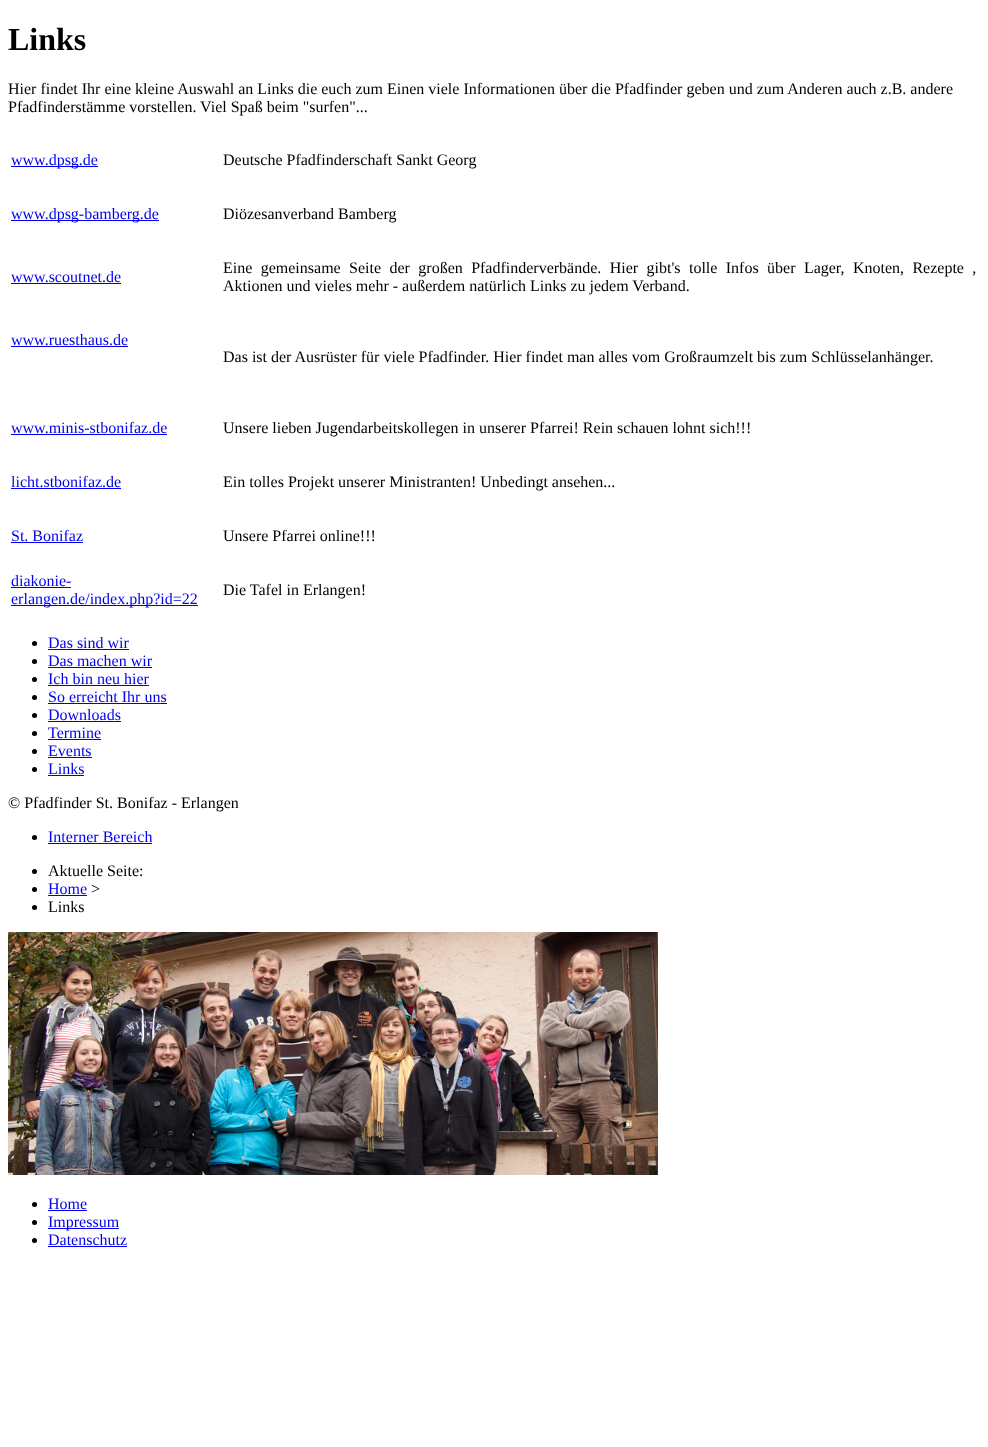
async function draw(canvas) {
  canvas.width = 988;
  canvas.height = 1447;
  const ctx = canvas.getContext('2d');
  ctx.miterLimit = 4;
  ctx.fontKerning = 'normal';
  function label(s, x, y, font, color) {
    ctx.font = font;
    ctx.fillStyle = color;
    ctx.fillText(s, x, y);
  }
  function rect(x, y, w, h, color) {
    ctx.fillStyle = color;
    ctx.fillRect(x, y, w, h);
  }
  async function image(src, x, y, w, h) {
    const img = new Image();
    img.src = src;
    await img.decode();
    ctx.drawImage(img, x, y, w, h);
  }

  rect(0, 0, 988, 1447, '#fff');
  label('Links', 8, 50, 'bold 32px Liberation Serif', '#000');
  label('Hier findet Ihr eine kleine Auswahl an Links die euch zum Einen viele Informationen über die Pfadfinder geben und zum Anderen auch z.B. andere', 8, 94, '16px Liberation Serif', '#000');
  label('Pfadfinderstämme vorstellen. Viel Spaß beim "surfen"...', 8, 112, '16px Liberation Serif', '#000');
  rect(11, 166, 87, 1, '#00e');
  label('www.dpsg.de', 11, 165, '16px Liberation Serif', '#00e');
  label('Deutsche Pfadfinderschaft Sankt Georg', 223, 165, '16px Liberation Serif', '#000');
  rect(11, 220, 148, 1, '#00e');
  label('www.dpsg-bamberg.de', 11, 219, '16px Liberation Serif', '#00e');
  label('Diözesanverband Bamberg', 223, 219, '16px Liberation Serif', '#000');
  label('www.scoutnet.de', 11, 282, '16px Liberation Serif', '#00e');
  rect(11, 283, 110, 1, '#00e');
  ctx.wordSpacing = '4.4px';
  label('Eine gemeinsame Seite der großen Pfadfinderverbände. Hier gibt\'s tolle Infos über Lager, Knoten, Rezepte ,', 223, 273, '16px Liberation Serif', '#000');
  ctx.wordSpacing = '0px';
  label('Aktionen und vieles mehr - außerdem natürlich Links zu jedem Verband.', 223, 291, '16px Liberation Serif', '#000');
  label('www.ruesthaus.de', 11, 345, '16px Liberation Serif', '#00e');
  rect(11, 346, 117, 1, '#00e');
  label('Das ist der Ausrüster für viele Pfadfinder. Hier findet man alles vom Großraumzelt bis zum Schlüsselanhänger.', 223, 362, '16px Liberation Serif', '#000');
  label('www.minis-stbonifaz.de', 11, 433, '16px Liberation Serif', '#00e');
  rect(11, 434, 156, 1, '#00e');
  label('Unsere lieben Jugendarbeitskollegen in unserer Pfarrei! Rein schauen lohnt sich!!!', 223, 433, '16px Liberation Serif', '#000');
  label('licht.stbonifaz.de', 11, 487, '16px Liberation Serif', '#00e');
  rect(11, 488, 110, 1, '#00e');
  label('Ein tolles Projekt unserer Ministranten! Unbedingt ansehen...', 223, 487, '16px Liberation Serif', '#000');
  label('St. Bonifaz', 11, 541, '16px Liberation Serif', '#00e');
  rect(11, 542, 72, 1, '#00e');
  label('Unsere Pfarrei online!!!', 223, 541, '16px Liberation Serif', '#000');
  label('diakonie-', 11, 586, '16px Liberation Serif', '#00e');
  rect(11, 587, 60, 1, '#00e');
  rect(11, 605, 187, 1, '#00e');
  label('erlangen.de/index.php?id=22', 11, 604, '16px Liberation Serif', '#00e');
  label('Die Tafel in Erlangen!', 223, 595, '16px Liberation Serif', '#000');
  ctx.beginPath();
  ctx.arc(34.5, 643.5, 2.5, 0, 2 * Math.PI);
  ctx.fill();
  label('Das sind wir', 48, 648, '16px Liberation Serif', '#00e');
  rect(48, 649, 81, 1, '#00e');
  ctx.fillStyle = '#000';
  ctx.beginPath();
  ctx.arc(34.5, 661.5, 2.5, 0, 2 * Math.PI);
  ctx.fill();
  label('Das machen wir', 48, 666, '16px Liberation Serif', '#00e');
  rect(48, 667, 104, 1, '#00e');
  ctx.fillStyle = '#000';
  ctx.beginPath();
  ctx.arc(34.5, 679.5, 2.5, 0, 2 * Math.PI);
  ctx.fill();
  label('Ich bin neu hier', 48, 684, '16px Liberation Serif', '#00e');
  rect(48, 685, 101, 1, '#00e');
  ctx.fillStyle = '#000';
  ctx.beginPath();
  ctx.arc(34.5, 697.5, 2.5, 0, 2 * Math.PI);
  ctx.fill();
  label('So erreicht Ihr uns', 48, 702, '16px Liberation Serif', '#00e');
  rect(48, 703, 119, 1, '#00e');
  ctx.fillStyle = '#000';
  ctx.beginPath();
  ctx.arc(34.5, 715.5, 2.5, 0, 2 * Math.PI);
  ctx.fill();
  label('Downloads', 48, 720, '16px Liberation Serif', '#00e');
  rect(48, 721, 73, 1, '#00e');
  ctx.fillStyle = '#000';
  ctx.beginPath();
  ctx.arc(34.5, 733.5, 2.5, 0, 2 * Math.PI);
  ctx.fill();
  label('Termine', 48, 738, '16px Liberation Serif', '#00e');
  rect(48, 739, 53, 1, '#00e');
  ctx.fillStyle = '#000';
  ctx.beginPath();
  ctx.arc(34.5, 751.5, 2.5, 0, 2 * Math.PI);
  ctx.fill();
  label('Events', 48, 756, '16px Liberation Serif', '#00e');
  rect(48, 757, 44, 1, '#00e');
  ctx.fillStyle = '#000';
  ctx.beginPath();
  ctx.arc(34.5, 769.5, 2.5, 0, 2 * Math.PI);
  ctx.fill();
  label('Links', 48, 774, '16px Liberation Serif', '#00e');
  rect(48, 775, 36, 1, '#00e');
  label('© Pfadfinder St. Bonifaz - Erlangen', 8, 808, '16px Liberation Serif', '#000');
  ctx.beginPath();
  ctx.arc(34.5, 837.5, 2.5, 0, 2 * Math.PI);
  ctx.fill();
  label('Interner Bereich', 48, 842, '16px Liberation Serif', '#00e');
  rect(48, 843, 104, 1, '#00e');
  ctx.fillStyle = '#000';
  ctx.beginPath();
  ctx.arc(34.5, 871.5, 2.5, 0, 2 * Math.PI);
  ctx.fill();
  label('Aktuelle Seite:', 48, 876, '16px Liberation Serif', '#000');
  ctx.beginPath();
  ctx.arc(34.5, 889.5, 2.5, 0, 2 * Math.PI);
  ctx.fill();
  label('Home', 48, 894, '16px Liberation Serif', '#00e');
  rect(48, 895, 39, 1, '#00e');
  label('>', 91, 894, '16px Liberation Serif', '#000');
  ctx.beginPath();
  ctx.arc(34.5, 907.5, 2.5, 0, 2 * Math.PI);
  ctx.fill();
  label('Links', 48, 912, '16px Liberation Serif', '#000');
  await image('assets/img1.png', 8, 932, 650, 243);
  ctx.beginPath();
  ctx.arc(34.5, 1204.5, 2.5, 0, 2 * Math.PI);
  ctx.fill();
  label('Home', 48, 1209, '16px Liberation Serif', '#00e');
  rect(48, 1210, 39, 1, '#00e');
  ctx.fillStyle = '#000';
  ctx.beginPath();
  ctx.arc(34.5, 1222.5, 2.5, 0, 2 * Math.PI);
  ctx.fill();
  rect(48, 1228, 71, 1, '#00e');
  label('Impressum', 48, 1227, '16px Liberation Serif', '#00e');
  ctx.fillStyle = '#000';
  ctx.beginPath();
  ctx.arc(34.5, 1240.5, 2.5, 0, 2 * Math.PI);
  ctx.fill();
  label('Datenschutz', 48, 1245, '16px Liberation Serif', '#00e');
  rect(48, 1246, 79, 1, '#00e');
}

draw(document.querySelector('canvas'));
